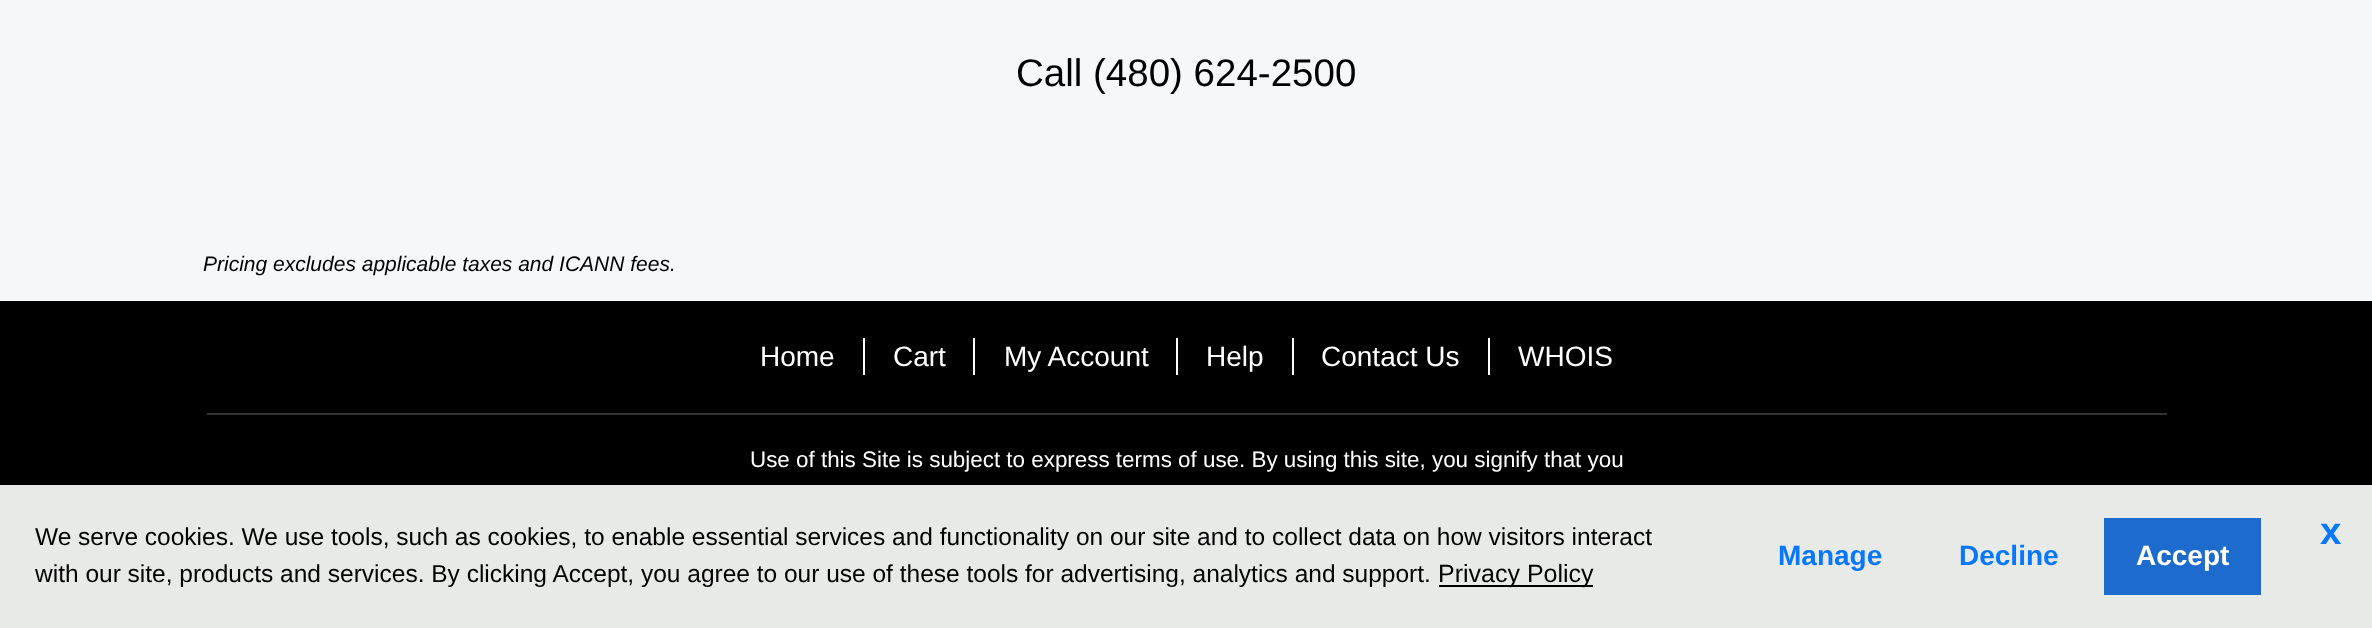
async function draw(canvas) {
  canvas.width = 2372;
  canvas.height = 628;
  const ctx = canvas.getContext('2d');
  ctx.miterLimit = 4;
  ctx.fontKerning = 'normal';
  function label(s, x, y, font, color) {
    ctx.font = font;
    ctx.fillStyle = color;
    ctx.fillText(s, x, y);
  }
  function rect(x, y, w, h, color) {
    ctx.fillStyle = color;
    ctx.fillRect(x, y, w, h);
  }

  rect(0, 0, 2372, 628, '#f5f7f8');
  label('Call (480) 624-2500', 1016, 86, '38.5px Liberation Sans', '#000');
  label('Pricing excludes applicable taxes and ICANN fees.', 203, 271, 'italic 21px Liberation Sans', '#000');
  rect(0, 301, 2372, 184, '#000');
  rect(207, 413, 1960, 2, '#333');
  label('Home', 760, 366, '28px Liberation Sans', '#fff');
  rect(863, 338, 2, 37, '#fff');
  label('Cart', 893, 366, '28px Liberation Sans', '#fff');
  rect(973, 338, 2, 37, '#fff');
  label('My Account', 1004, 366, '28px Liberation Sans', '#fff');
  rect(1176, 338, 2, 37, '#fff');
  label('Help', 1206, 366, '28px Liberation Sans', '#fff');
  rect(1292, 338, 2, 37, '#fff');
  label('Contact Us', 1321, 366, '28px Liberation Sans', '#fff');
  rect(1488, 338, 2, 37, '#fff');
  label('WHOIS', 1518, 366, '28px Liberation Sans', '#fff');
  label('Use of this Site is subject to express terms of use. By using this site, you signify that you', 750, 467, '22.4px Liberation Sans', '#fff');
  rect(0, 485, 2372, 143, '#e8eae8');
  label('We serve cookies. We use tools, such as cookies, to enable essential services and functionality on our site and to collect data on how visitors interact', 35, 545, '24.5px Liberation Sans', '#000');
  label('with our site, products and services. By clicking Accept, you agree to our use of these tools for advertising, analytics and support.', 35, 582, '24.5px Liberation Sans', '#000');
  rect(1439, 585, 154, 2, '#000');
  label('Privacy Policy', 1438, 582, '25px Liberation Sans', '#000');
  label('Manage', 1778, 565, 'bold 28px Liberation Sans', '#0877ff');
  label('Decline', 1959, 565, 'bold 28px Liberation Sans', '#0877ff');
  rect(2104, 518, 157, 77, '#1d6ccd');
  label('Accept', 2136, 565, 'bold 28px Liberation Sans', '#fff');
  label('x', 2320, 544, 'bold 38.5px Liberation Sans', '#0877ff');
}

draw(document.querySelector('canvas'));
